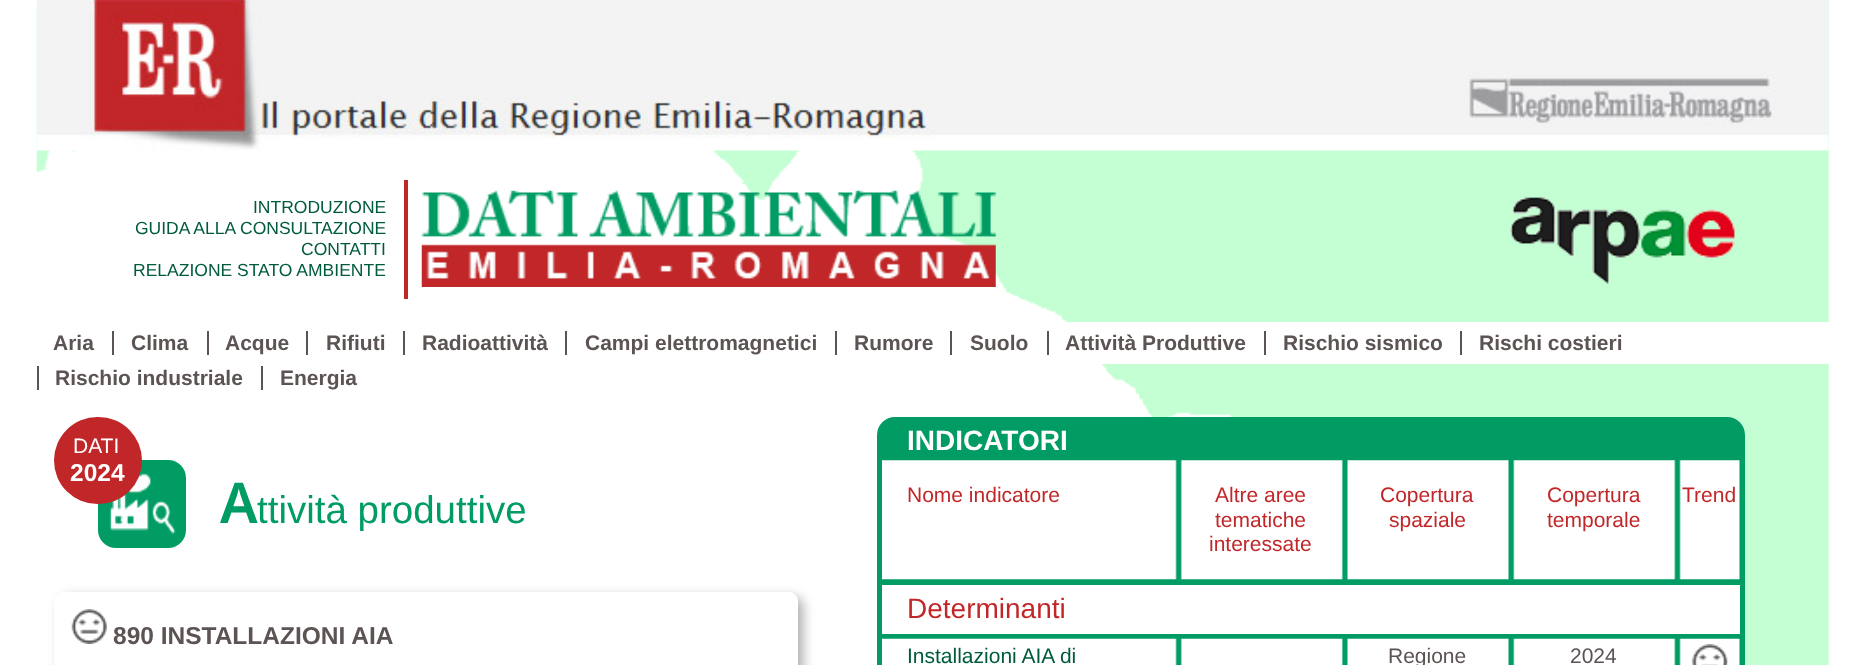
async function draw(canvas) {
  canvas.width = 1863;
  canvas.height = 665;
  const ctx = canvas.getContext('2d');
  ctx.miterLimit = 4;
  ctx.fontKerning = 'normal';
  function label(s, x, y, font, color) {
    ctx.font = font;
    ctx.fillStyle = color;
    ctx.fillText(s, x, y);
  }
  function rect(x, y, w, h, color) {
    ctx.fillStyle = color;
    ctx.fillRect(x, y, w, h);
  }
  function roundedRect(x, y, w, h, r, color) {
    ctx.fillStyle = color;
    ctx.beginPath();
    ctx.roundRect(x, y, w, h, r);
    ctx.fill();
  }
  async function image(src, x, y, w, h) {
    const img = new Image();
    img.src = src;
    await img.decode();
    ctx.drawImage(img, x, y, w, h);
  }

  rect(0, 0, 1863, 665, '#fff');
  await image('assets/img1.png', 36, 0, 1793, 665);
  await image('assets/img2.png', 37, 0, 1792, 151);
  rect(404, 180, 4, 119, '#c12729');
  label('INTRODUZIONE', 253, 213, '17.5px Liberation Sans', '#005b3a');
  label('GUIDA ALLA CONSULTAZIONE', 135, 234, '17.5px Liberation Sans', '#005b3a');
  label('CONTATTI', 301, 255, '17.5px Liberation Sans', '#005b3a');
  label('RELAZIONE STATO AMBIENTE', 133, 276, '17.5px Liberation Sans', '#005b3a');
  await image('assets/img3.png', 421, 190, 575, 97);
  await image('assets/img4.png', 1510, 197, 225, 87);
  rect(1065, 322, 764, 42, '#fff');
  label('Aria', 53, 350, 'bold 21px Liberation Sans', '#5c5353');
  label('Clima', 131, 350, 'bold 21px Liberation Sans', '#5c5353');
  rect(112, 331, 2, 24, '#5c5353');
  label('Acque', 225, 350, 'bold 21px Liberation Sans', '#5c5353');
  rect(207, 331, 2, 24, '#5c5353');
  label('Rifiuti', 326, 350, 'bold 21px Liberation Sans', '#5c5353');
  rect(306, 331, 2, 24, '#5c5353');
  label('Radioattività', 422, 350, 'bold 21px Liberation Sans', '#5c5353');
  rect(403, 331, 2, 24, '#5c5353');
  label('Campi elettromagnetici', 585, 350, 'bold 21px Liberation Sans', '#5c5353');
  rect(565, 331, 2, 24, '#5c5353');
  label('Rumore', 854, 350, 'bold 21px Liberation Sans', '#5c5353');
  rect(835, 331, 2, 24, '#5c5353');
  label('Suolo', 970, 350, 'bold 21px Liberation Sans', '#5c5353');
  rect(950, 331, 2, 24, '#5c5353');
  label('Attività Produttive', 1065, 350, 'bold 21px Liberation Sans', '#5c5353');
  rect(1047, 331, 2, 24, '#5c5353');
  label('Rischio sismico', 1283, 350, 'bold 21px Liberation Sans', '#5c5353');
  rect(1264, 331, 2, 24, '#5c5353');
  label('Rischi costieri', 1479, 350, 'bold 21px Liberation Sans', '#5c5353');
  rect(1460, 331, 2, 24, '#5c5353');
  label('Rischio industriale', 55, 385, 'bold 21px Liberation Sans', '#5c5353');
  rect(37, 366, 2, 24, '#5c5353');
  label('Energia', 280, 385, 'bold 21px Liberation Sans', '#5c5353');
  rect(261, 366, 2, 24, '#5c5353');
  roundedRect(98, 460, 88, 88, 18, '#009c63');
  await image('assets/img5.png', 109, 473, 67, 62);
  roundedRect(54, 417, 88, 87, 43.5, '#c12729');
  label('DATI', 73, 453, '21px Liberation Sans', '#fff');
  label('2024', 70, 481, 'bold 24.5px Liberation Sans', '#fff');
  label('A', 220, 523, '600 56px Noto Sans', '#009c63');
  label('ttività produttive', 257, 523, '38.5px Liberation Sans', '#009c63');
  ctx.fillStyle = '#32323266';
  ctx.filter = 'blur(6px)';
  ctx.beginPath();
  ctx.roundRect(60, 597, 743, 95, 9);
  ctx.fill();
  ctx.filter = 'none';
  roundedRect(54, 592, 744, 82, 9, '#fff');
  await image('assets/img6.png', 71, 609, 36, 35);
  label('890 INSTALLAZIONI AIA', 113, 644, 'bold 24.5px Liberation Sans', '#5c5353');
  roundedRect(877, 417, 868, 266, 18, '#009c63');
  label('INDICATORI', 907, 450, 'bold 28px Liberation Sans', '#fff');
  await image('assets/img7.png', 882, 460, 858, 120);
  label('Nome indicatore', 907, 502, '21px Liberation Sans', '#c12729');
  label('Altre aree', 1215, 502, '21px Liberation Sans', '#c12729');
  label('tematiche', 1215, 527, '21px Liberation Sans', '#c12729');
  label('interessate', 1209, 551, '21px Liberation Sans', '#c12729');
  label('Copertura', 1380, 502, '21px Liberation Sans', '#c12729');
  label('spaziale', 1389, 527, '21px Liberation Sans', '#c12729');
  label('Copertura', 1547, 502, '21px Liberation Sans', '#c12729');
  label('temporale', 1547, 527, '21px Liberation Sans', '#c12729');
  label('Trend', 1682, 502, '21px Liberation Sans', '#c12729');
  rect(882, 585, 858, 49, '#fff');
  label('Determinanti', 907, 618, '28px Liberation Sans', '#c12729');
  await image('assets/img8.png', 882, 638, 858, 27);
  label('Installazioni AIA di', 907, 663, '21px Liberation Sans', '#005b3a');
  label('Regione', 1388, 663, '21px Liberation Sans', '#5c5353');
  label('2024', 1570, 663, '21px Liberation Sans', '#5c5353');
  await image('assets/img9.png', 1692, 644, 36, 21);
}

draw(document.querySelector('canvas'));
